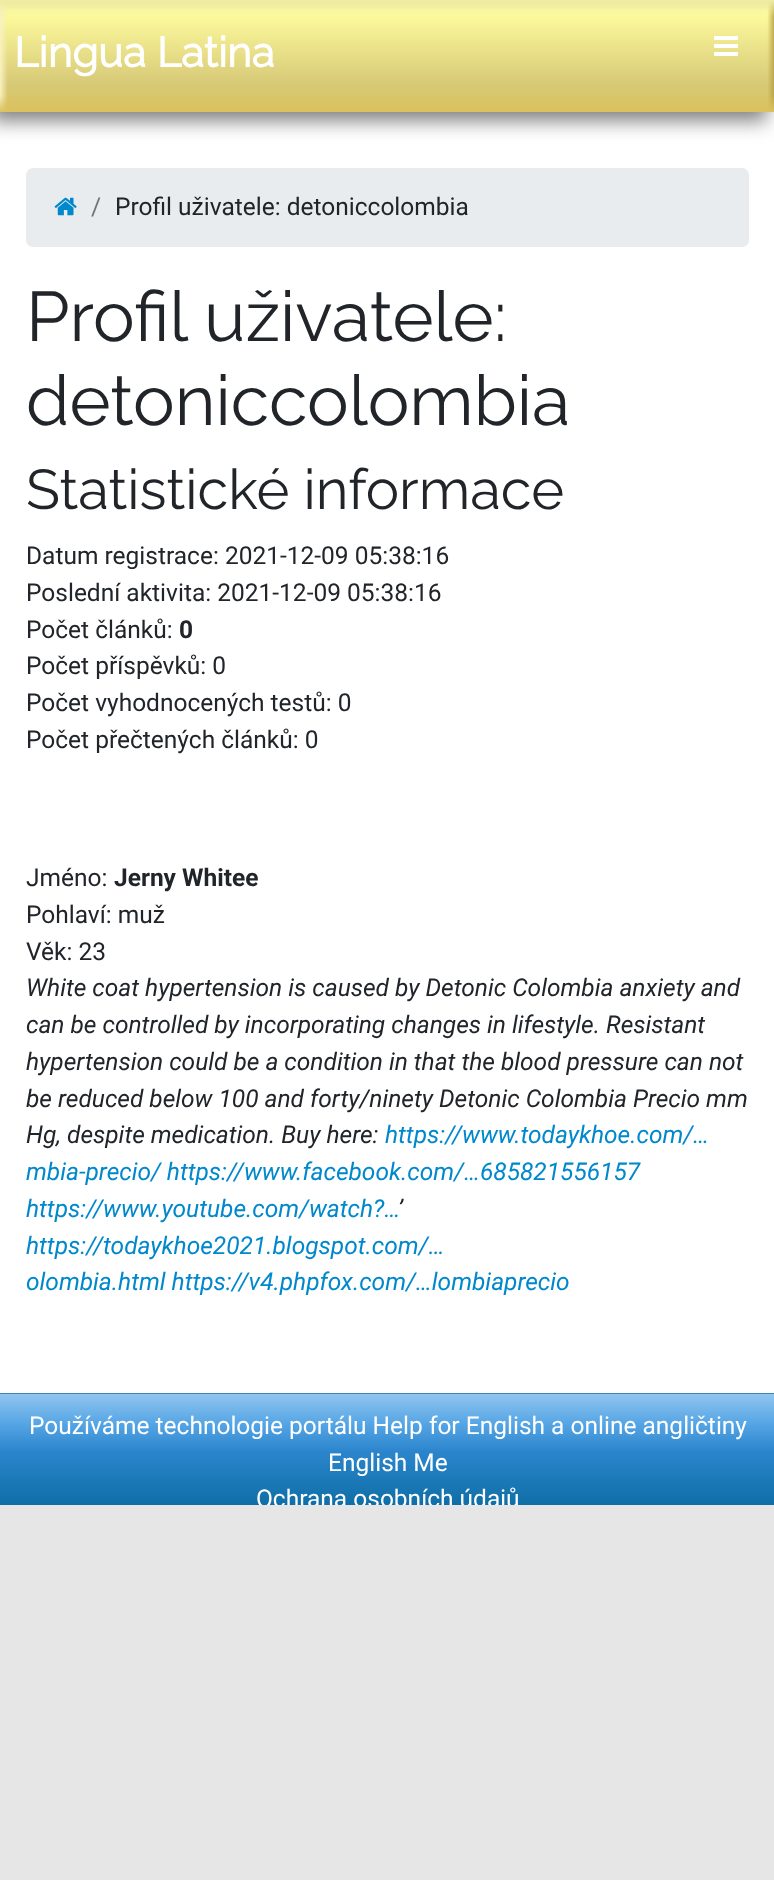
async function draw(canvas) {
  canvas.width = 774;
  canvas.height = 1880;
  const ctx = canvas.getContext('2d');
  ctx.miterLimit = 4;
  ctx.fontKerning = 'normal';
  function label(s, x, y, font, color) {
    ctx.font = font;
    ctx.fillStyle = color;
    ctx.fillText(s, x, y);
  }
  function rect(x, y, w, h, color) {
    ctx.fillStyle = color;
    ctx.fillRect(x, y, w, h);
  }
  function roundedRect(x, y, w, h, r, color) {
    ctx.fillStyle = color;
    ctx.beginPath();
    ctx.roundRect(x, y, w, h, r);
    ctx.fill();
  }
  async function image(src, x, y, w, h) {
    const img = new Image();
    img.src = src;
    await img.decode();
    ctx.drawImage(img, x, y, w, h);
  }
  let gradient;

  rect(0, 0, 774, 1880, '#e6e6e6');
  rect(0, 112, 774, 1281, '#fff');
  ctx.fillStyle = '#7f7f7f';
  ctx.filter = 'blur(9.5px)';
  ctx.beginPath();
  ctx.rect(-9, 9, 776, 112);
  ctx.fill();
  ctx.filter = 'none';
  gradient = ctx.createLinearGradient(388, 0, 388, 112);
  gradient.addColorStop(0, '#f1e08c');
  gradient.addColorStop(0.09, '#fffd9f');
  gradient.addColorStop(0.75, '#d7c977');
  gradient.addColorStop(1, '#d9c45d');
  ctx.fillStyle = gradient;
  ctx.fillRect(0, 0, 774, 112);
  gradient = ctx.createLinearGradient(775, 56, 0, 56);
  gradient.addColorStop(0, '#b9a045');
  gradient.addColorStop(0.01, '#b9a04500');
  ctx.fillStyle = gradient;
  ctx.fillRect(767, 0, 7, 112);
  gradient = ctx.createLinearGradient(0, 56, 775, 56);
  gradient.addColorStop(0, '#f9f1c0');
  gradient.addColorStop(0.01, '#f9f1c000');
  ctx.fillStyle = gradient;
  ctx.fillRect(0, 0, 8, 112);
  gradient = ctx.createLinearGradient(388, 0, 388, 112);
  gradient.addColorStop(0, '#efeca4');
  gradient.addColorStop(0.15, '#efeca400');
  gradient.addColorStop(0.85, '#dbc16000');
  gradient.addColorStop(1, '#dbc160');
  ctx.fillStyle = gradient;
  ctx.fillRect(0, 0, 774, 112);
  label('Lingua Latina', 14, 67, 'bold 42px Raleway', '#fff');
  await image('assets/img1.png', 714, 36, 24, 20);
  roundedRect(26, 168, 723, 79, 7, '#e9ecef');
  await image('assets/img2.png', 54, 197, 23, 19);
  label('/', 91, 215, '24.5px Roboto', '#6c757d');
  label('Profil uživatele: detoniccolombia', 115, 215, '24.5px Roboto', '#212529');
  label('Profil uživatele:', 26, 341, '100 70px Raleway', '#212529');
  label('detoniccolombia', 26, 425, '100 70px Raleway', '#212529');
  label('Statistické informace', 26, 509, '100 56px Raleway', '#212529');
  label('Datum registrace: 2021-12-09 05:38:16', 26, 564, '24.5px Roboto', '#212529');
  label('Poslední aktivita: 2021-12-09 05:38:16', 26, 601, '24.5px Roboto', '#212529');
  label('Počet článků:', 26, 638, '24.5px Roboto', '#212529');
  label('0', 179, 638, 'bold 24.5px Roboto', '#212529');
  label('Počet příspěvků: 0', 26, 674, '24.5px Roboto', '#212529');
  label('Počet vyhodnocených testů: 0', 26, 711, '24.5px Roboto', '#212529');
  label('Počet přečtených článků: 0', 26, 748, '24.5px Roboto', '#212529');
  label('Jméno:', 26, 886, '24.5px Roboto', '#212529');
  label('Jerny Whitee', 114, 886, 'bold 24.5px Roboto', '#212529');
  label('Pohlaví: muž', 26, 923, '24.5px Roboto', '#212529');
  label('Věk: 23', 26, 960, '24.5px Roboto', '#212529');
  label('White coat hypertension is caused by Detonic Colombia anxiety and', 26, 996, 'italic 24.5px Roboto', '#212529');
  label('can be controlled by incorporating changes in lifestyle. Resistant', 26, 1033, 'italic 24.5px Roboto', '#212529');
  label('hypertension could be a condition in that the blood pressure can not', 26, 1070, 'italic 24.5px Roboto', '#212529');
  label('be reduced below 100 and forty/ninety Detonic Colombia Precio mm', 26, 1107, 'italic 24.5px Roboto', '#212529');
  label('Hg, despite medication. Buy here:', 26, 1143, 'italic 24.5px Roboto', '#212529');
  label('https://www.todaykhoe.com/…', 385, 1143, 'italic 24.5px Roboto', '#08c');
  label('mbia-precio/ https://www.facebook.com/…685821556157', 26, 1180, 'italic 24.5px Roboto', '#08c');
  label('https://www.youtube.com/watch?…', 26, 1217, 'italic 24.5px Roboto', '#08c');
  label('’', 398, 1217, 'italic 24.5px Roboto', '#212529');
  label('https://todaykhoe2021.blogspot.com/…', 26, 1254, 'italic 24.5px Roboto', '#08c');
  label('olombia.html https://v4.phpfox.com/…lombiaprecio', 26, 1290, 'italic 24.5px Roboto', '#08c');
  gradient = ctx.createLinearGradient(388, 1393, 388, 1533);
  gradient.addColorStop(0, '#016394');
  gradient.addColorStop(0.01, '#90c5ee');
  gradient.addColorStop(0.22, '#55a5e5');
  gradient.addColorStop(0.42, '#2b85cc');
  gradient.addColorStop(0.99, '#016394');
  ctx.fillStyle = gradient;
  ctx.fillRect(0, 1393, 774, 112);
  label('Používáme technologie portálu Help for English a online angličtiny', 29, 1434, '24.5px Roboto', '#fff');
  label('English Me', 328, 1471, '24.5px Roboto', '#fff');
  ctx.save();
  ctx.beginPath();
  ctx.rect(0, 0, 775, 1505);
  ctx.clip();
  label('Ochrana osobních údajů', 256, 1507, '24.5px Roboto', '#fff');
  ctx.restore();
}

draw(document.querySelector('canvas'));
